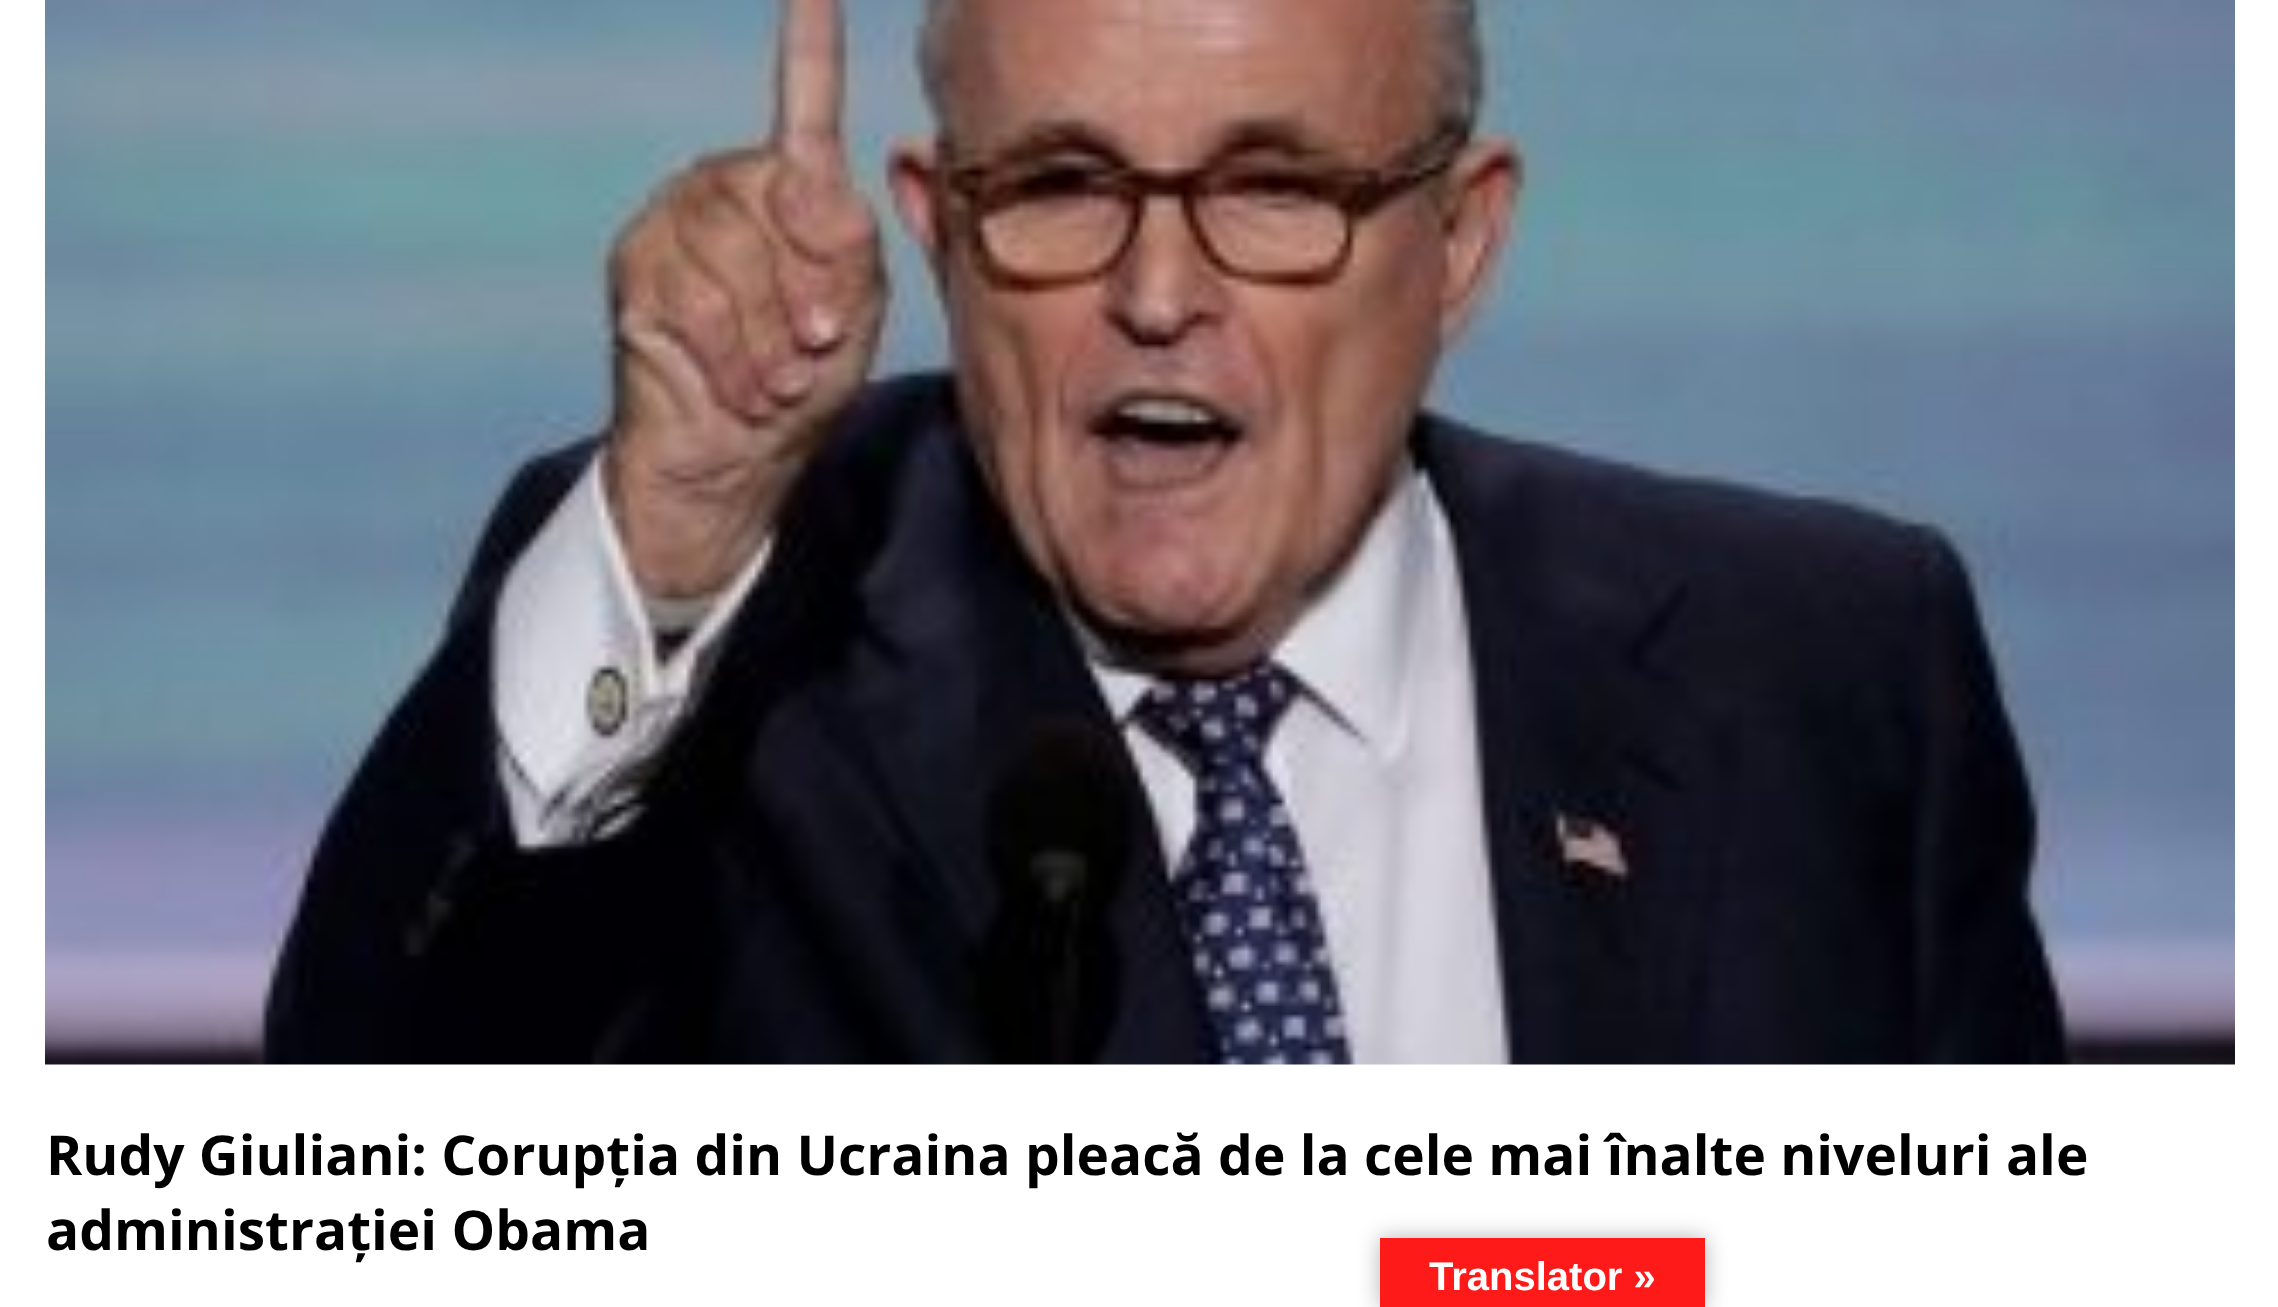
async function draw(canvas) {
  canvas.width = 2278;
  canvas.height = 1307;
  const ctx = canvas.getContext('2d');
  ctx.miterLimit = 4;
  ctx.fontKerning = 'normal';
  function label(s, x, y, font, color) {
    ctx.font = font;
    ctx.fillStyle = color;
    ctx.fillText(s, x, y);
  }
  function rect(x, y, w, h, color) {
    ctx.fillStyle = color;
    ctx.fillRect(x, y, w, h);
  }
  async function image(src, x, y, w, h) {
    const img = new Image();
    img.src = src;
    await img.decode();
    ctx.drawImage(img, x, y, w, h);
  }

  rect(0, 0, 2278, 1307, '#fff');
  await image('assets/img1.png', 45, 0, 2190, 1065);
  label('Rudy Giuliani: Corupția din Ucraina pleacă de la cele mai înalte niveluri ale', 46, 1175, 'bold 55px Open Sans', '#000');
  label('administrației Obama', 46, 1250, 'bold 55px Open Sans', '#000');
  ctx.fillStyle = '#0000004d';
  ctx.filter = 'blur(11px)';
  ctx.beginPath();
  ctx.rect(1380, 1238, 325, 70);
  ctx.fill();
  ctx.filter = 'none';
  rect(1380, 1238, 325, 69, '#ff1a1a');
  label('Translator »', 1429, 1290, 'bold 40px Liberation Sans', '#fff');
}

draw(document.querySelector('canvas'));
